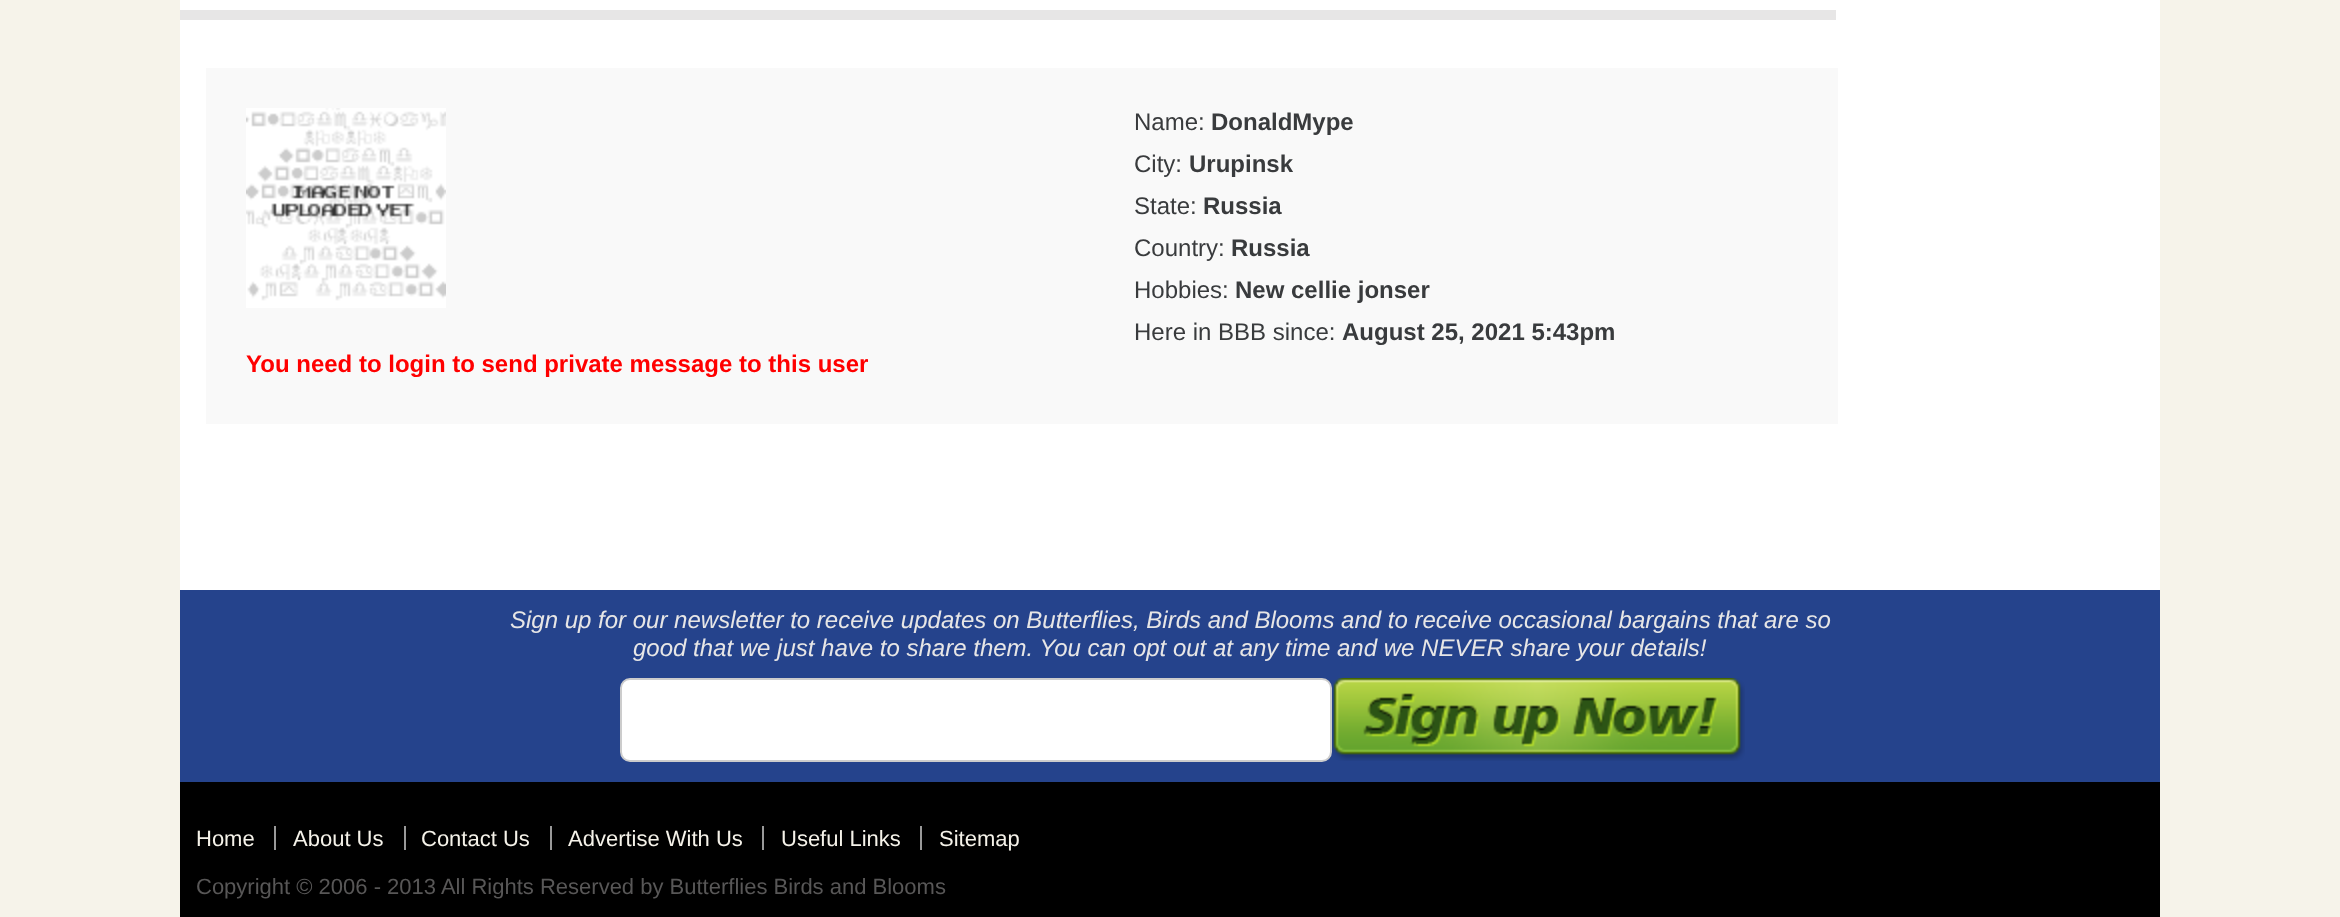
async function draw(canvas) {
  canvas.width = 2340;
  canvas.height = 917;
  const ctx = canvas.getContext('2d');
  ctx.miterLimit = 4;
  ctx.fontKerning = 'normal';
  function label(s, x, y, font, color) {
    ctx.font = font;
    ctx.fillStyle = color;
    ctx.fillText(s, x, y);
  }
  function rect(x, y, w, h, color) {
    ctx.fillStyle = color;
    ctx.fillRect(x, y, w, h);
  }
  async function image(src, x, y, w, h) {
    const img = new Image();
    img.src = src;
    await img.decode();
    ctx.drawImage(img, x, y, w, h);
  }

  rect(0, 0, 2340, 917, '#f6f3ea');
  rect(180, 0, 1980, 590, '#fff');
  rect(180, 10, 1656, 10, '#e7e6e6');
  rect(206, 68, 1632, 356, '#f9f9f9');
  label('Name:', 1134, 130, '24px Liberation Sans', '#393b3d');
  label('DonaldMype', 1211, 130, 'bold 24px Liberation Sans', '#393b3d');
  label('City:', 1134, 172, '24px Liberation Sans', '#393b3d');
  label('Urupinsk', 1189, 172, 'bold 24px Liberation Sans', '#393b3d');
  label('State:', 1134, 214, '24px Liberation Sans', '#393b3d');
  label('Russia', 1203, 214, 'bold 24px Liberation Sans', '#393b3d');
  label('Country:', 1134, 256, '24px Liberation Sans', '#393b3d');
  label('Russia', 1231, 256, 'bold 24px Liberation Sans', '#393b3d');
  label('Hobbies:', 1134, 298, '24px Liberation Sans', '#393b3d');
  label('New cellie jonser', 1235, 298, 'bold 24px Liberation Sans', '#393b3d');
  label('Here in BBB since:', 1134, 340, '24px Liberation Sans', '#393b3d');
  label('August 25, 2021 5:43pm', 1342, 340, 'bold 24px Liberation Sans', '#393b3d');
  await image('assets/img1.png', 246, 108, 200, 200);
  label('You need to login to send private message to this user', 246, 372, 'bold 24px Liberation Sans', '#f00');
  rect(180, 590, 1980, 192, '#25438c');
  label('Sign up for our newsletter to receive updates on Butterflies, Birds and Blooms and to receive occasional bargains that are so', 510, 628, 'italic 24px Liberation Sans', '#e7e6e6');
  label('good that we just have to share them. You can opt out at any time and we NEVER share your details!', 633, 656, 'italic 24px Liberation Sans', '#e7e6e6');
  ctx.fillStyle = '#fff';
  ctx.beginPath();
  ctx.roundRect(621, 679, 710, 82, 9);
  ctx.fill();
  ctx.strokeStyle = '#ccc';
  ctx.lineWidth = 2;
  ctx.stroke();
  await image('assets/img2.png', 1333, 678, 412, 83);
  rect(180, 782, 1980, 135, '#000');
  label('Home', 196, 846, '22px Liberation Sans', '#f5f2e9');
  rect(274, 826, 2, 24, '#999');
  label('About Us', 293, 846, '22px Liberation Sans', '#f5f2e9');
  rect(404, 826, 2, 24, '#999');
  label('Contact Us', 421, 846, '22px Liberation Sans', '#f5f2e9');
  rect(550, 826, 2, 24, '#999');
  label('Advertise With Us', 568, 846, '22px Liberation Sans', '#f5f2e9');
  rect(762, 826, 2, 24, '#999');
  label('Useful Links', 781, 846, '22px Liberation Sans', '#f5f2e9');
  rect(920, 826, 2, 24, '#999');
  label('Sitemap', 939, 846, '22px Liberation Sans', '#f5f2e9');
  label('Copyright © 2006 - 2013 All Rights Reserved by Butterflies Birds and Blooms', 196, 894, '22px Liberation Sans', '#585757');
}

draw(document.querySelector('canvas'));
